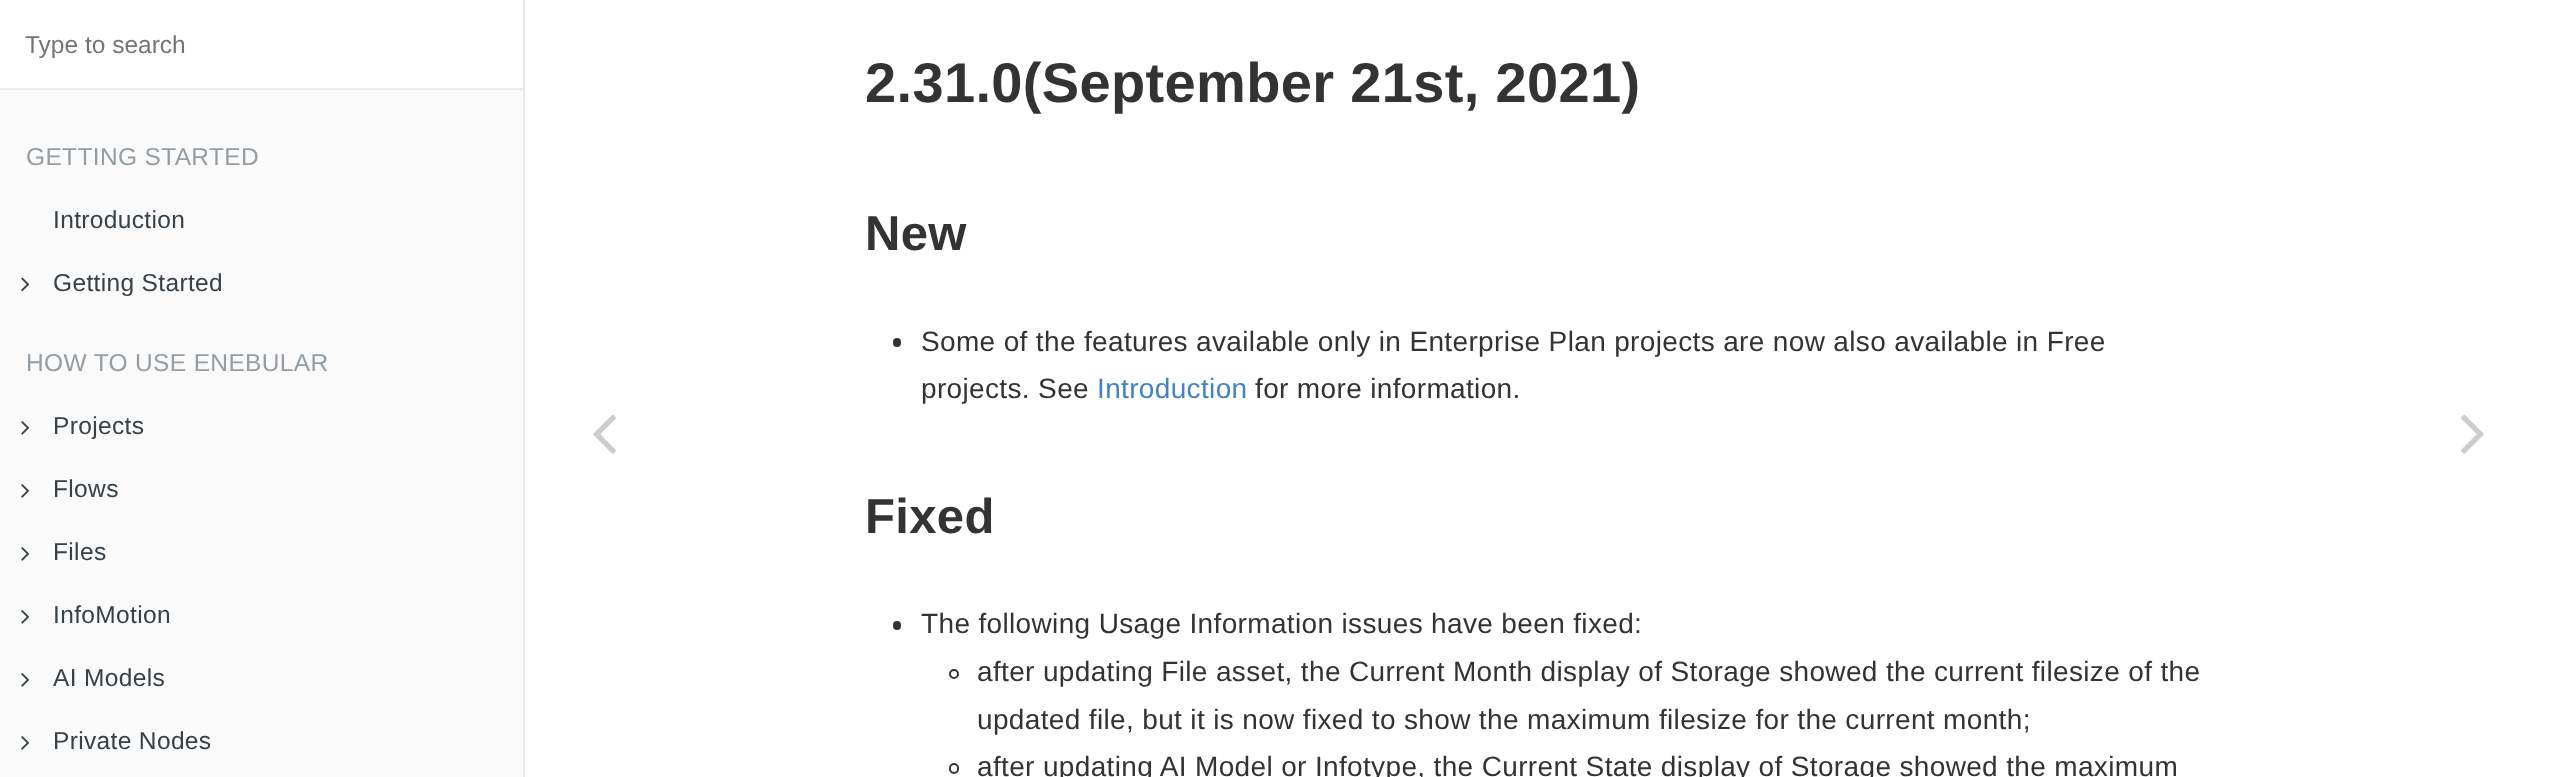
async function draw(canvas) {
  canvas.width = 2550;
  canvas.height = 777;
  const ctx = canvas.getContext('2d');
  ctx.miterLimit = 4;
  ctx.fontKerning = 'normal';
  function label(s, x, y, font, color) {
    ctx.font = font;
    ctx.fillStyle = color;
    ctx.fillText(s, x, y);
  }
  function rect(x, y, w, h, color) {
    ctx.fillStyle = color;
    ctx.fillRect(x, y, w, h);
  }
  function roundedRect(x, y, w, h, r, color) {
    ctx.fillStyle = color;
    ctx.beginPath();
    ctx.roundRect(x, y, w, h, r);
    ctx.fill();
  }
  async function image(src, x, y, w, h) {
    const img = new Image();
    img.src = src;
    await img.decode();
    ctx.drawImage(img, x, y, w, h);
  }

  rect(0, 0, 2550, 777, '#fff');
  rect(0, 90, 523, 687, '#fafafa');
  rect(0, 89, 523, 1, '#e8e8e8');
  rect(523, 0, 2, 777, '#e9e9e9');
  rect(0, 88, 523, 1, '#ededed');
  label('Type to search', 25, 53, '24.5px Liberation Sans', '#757575');
  ctx.letterSpacing = '0.35px';
  label('GETTING STARTED', 26, 165, '24.5px Liberation Sans', '#939da3');
  label('Introduction', 53, 228, '24.5px Liberation Sans', '#364149');
  await image('assets/img1.png', 21, 277, 9, 15);
  label('Getting Started', 53, 291, '24.5px Liberation Sans', '#364149');
  label('HOW TO USE ENEBULAR', 26, 371, '24.5px Liberation Sans', '#939da3');
  await image('assets/img2.png', 21, 421, 9, 14);
  label('Projects', 53, 434, '24.5px Liberation Sans', '#364149');
  await image('assets/img2.png', 21, 484, 9, 14);
  label('Flows', 53, 497, '24.5px Liberation Sans', '#364149');
  await image('assets/img2.png', 21, 547, 9, 14);
  label('Files', 53, 560, '24.5px Liberation Sans', '#364149');
  await image('assets/img2.png', 21, 610, 9, 14);
  label('InfoMotion', 53, 623, '24.5px Liberation Sans', '#364149');
  await image('assets/img2.png', 21, 673, 9, 14);
  label('AI Models', 53, 686, '24.5px Liberation Sans', '#364149');
  await image('assets/img2.png', 21, 736, 9, 14);
  label('Private Nodes', 53, 749, '24.5px Liberation Sans', '#364149');
  await image('assets/img3.png', 593, 414, 23, 40);
  label('2.31.0(September 21st, 2021)', 865, 102, 'bold 56px Liberation Sans', '#333');
  label('New', 865, 250, 'bold 49px Liberation Sans', '#333');
  roundedRect(893, 338, 8, 9, 4, '#333');
  label('Some of the features available only in Enterprise Plan projects are now also available in Free', 921, 351, '28px Liberation Sans', '#333');
  label('projects. See', 921, 398, '28px Liberation Sans', '#333');
  label('Introduction', 1097, 398, '28px Liberation Sans', '#4183c4');
  label('for more information.', 1255, 398, '28px Liberation Sans', '#333');
  label('Fixed', 865, 533, 'bold 49px Liberation Sans', '#333');
  roundedRect(893, 621, 8, 9, 4, '#333');
  label('The following Usage Information issues have been fixed:', 921, 633, '28px Liberation Sans', '#333');
  ctx.beginPath();
  ctx.arc(954, 674, 4, 0, 2 * Math.PI);
  ctx.strokeStyle = '#333';
  ctx.lineWidth = 2;
  ctx.stroke();
  label('after updating File asset, the Current Month display of Storage showed the current filesize of the', 977, 681, '28px Liberation Sans', '#333');
  label('updated file, but it is now fixed to show the maximum filesize for the current month;', 977, 729, '28px Liberation Sans', '#333');
  ctx.beginPath();
  ctx.roundRect(950, 764, 8, 9, 4);
  ctx.stroke();
  label('after updating AI Model or Infotype, the Current State display of Storage showed the maximum', 977, 776, '28px Liberation Sans', '#333');
  await image('assets/img4.png', 2461, 414, 23, 40);
}

draw(document.querySelector('canvas'));
